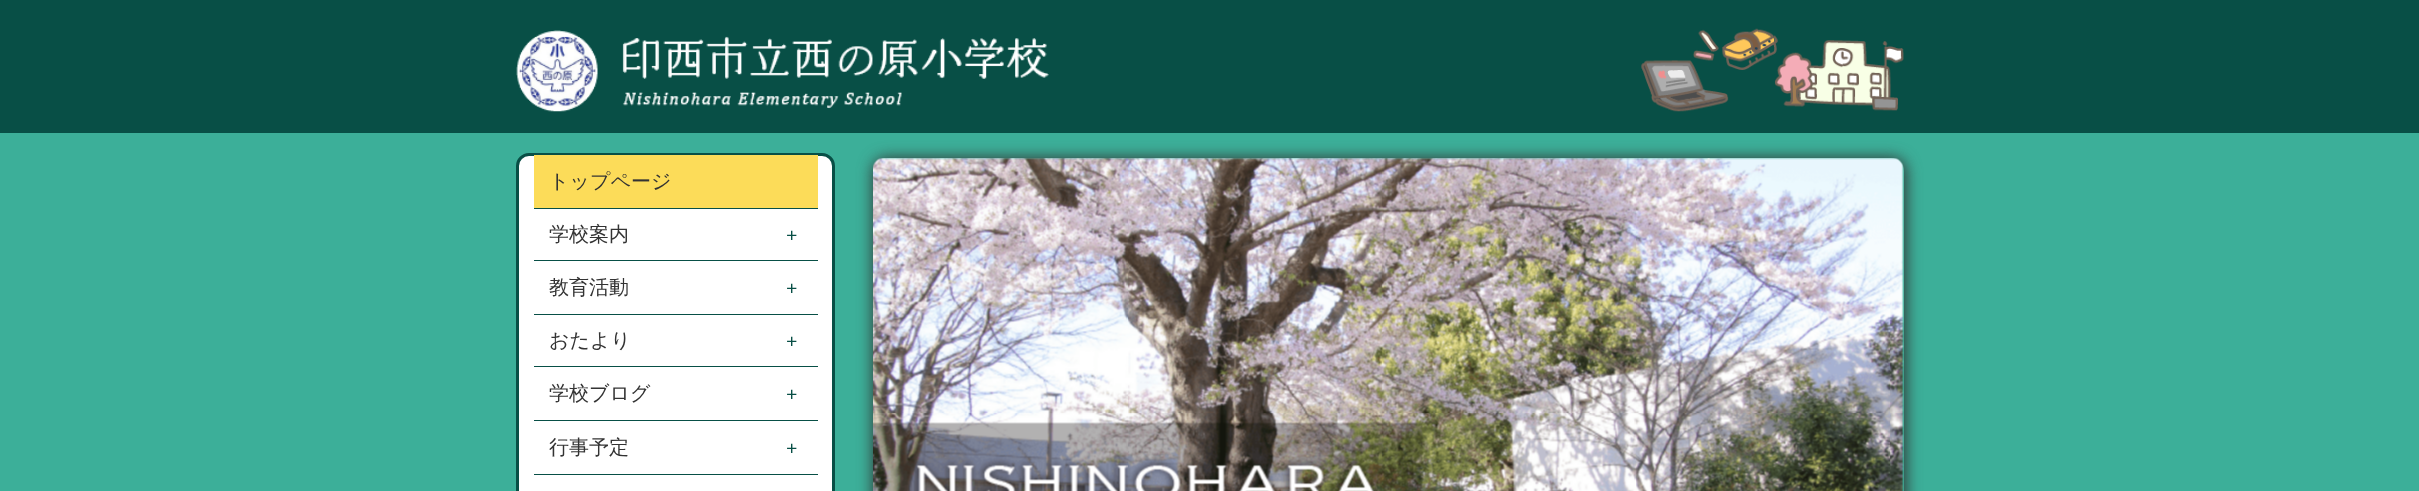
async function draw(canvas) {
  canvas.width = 2419;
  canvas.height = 491;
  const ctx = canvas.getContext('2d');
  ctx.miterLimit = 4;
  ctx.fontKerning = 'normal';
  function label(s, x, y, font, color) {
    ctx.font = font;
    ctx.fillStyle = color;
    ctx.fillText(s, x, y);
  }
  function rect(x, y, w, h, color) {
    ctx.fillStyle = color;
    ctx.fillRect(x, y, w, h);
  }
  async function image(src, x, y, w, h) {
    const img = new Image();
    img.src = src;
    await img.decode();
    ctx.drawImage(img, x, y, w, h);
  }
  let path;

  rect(0, 0, 2419, 491, '#3caf99');
  rect(0, 0, 2419, 133, '#084f46');
  await image('assets/img1.png', 1641, 28, 263, 84);
  await image('assets/img2.png', 516, 30, 533, 82);
  ctx.fillStyle = '#fff';
  ctx.beginPath();
  ctx.roundRect(517.5, 154.5, 316, 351, 11.5);
  ctx.fill();
  ctx.strokeStyle = '#084f46';
  ctx.lineWidth = 3;
  ctx.stroke();
  rect(534, 155, 284, 53, '#fcdc59');
  rect(534, 208, 284, 1, '#084f46');
  label('トップページ', 549, 188, '500 20px WenQuanYi Zen Hei', '#333');
  rect(534, 260, 284, 1, '#084f46');
  label('学校案内', 549, 241, '500 20px WenQuanYi Zen Hei', '#333');
  label('+', 786, 242, 'bold 20px Liberation Serif', '#084f46');
  rect(534, 314, 284, 1, '#084f46');
  label('教育活動', 549, 294, '500 20px WenQuanYi Zen Hei', '#333');
  label('+', 786, 295, 'bold 20px Liberation Serif', '#084f46');
  rect(534, 366, 284, 1, '#084f46');
  label('おたより', 549, 347, '500 20px WenQuanYi Zen Hei', '#333');
  label('+', 786, 348, 'bold 20px Liberation Serif', '#084f46');
  rect(534, 420, 284, 1, '#084f46');
  label('学校ブログ', 549, 400, '500 20px WenQuanYi Zen Hei', '#333');
  label('+', 786, 401, 'bold 20px Liberation Serif', '#084f46');
  rect(534, 474, 284, 1, '#084f46');
  label('行事予定', 549, 454, '500 20px WenQuanYi Zen Hei', '#333');
  label('+', 786, 455, 'bold 20px Liberation Serif', '#084f46');
  ctx.save();
  path = new Path2D('M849 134H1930V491H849ZM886 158H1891C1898 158 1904 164 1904 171V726C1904 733 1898 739 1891 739H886C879 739 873 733 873 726V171C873 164 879 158 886 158Z');
  ctx.clip(path, 'evenodd');
  ctx.fillStyle = '#333';
  ctx.filter = 'blur(7.5px)';
  ctx.beginPath();
  ctx.roundRect(873, 158, 1033, 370, 14);
  ctx.fill();
  ctx.filter = 'none';
  ctx.restore();
  await image('assets/img3.png', 873, 158, 1031, 333);
}

draw(document.querySelector('canvas'));
